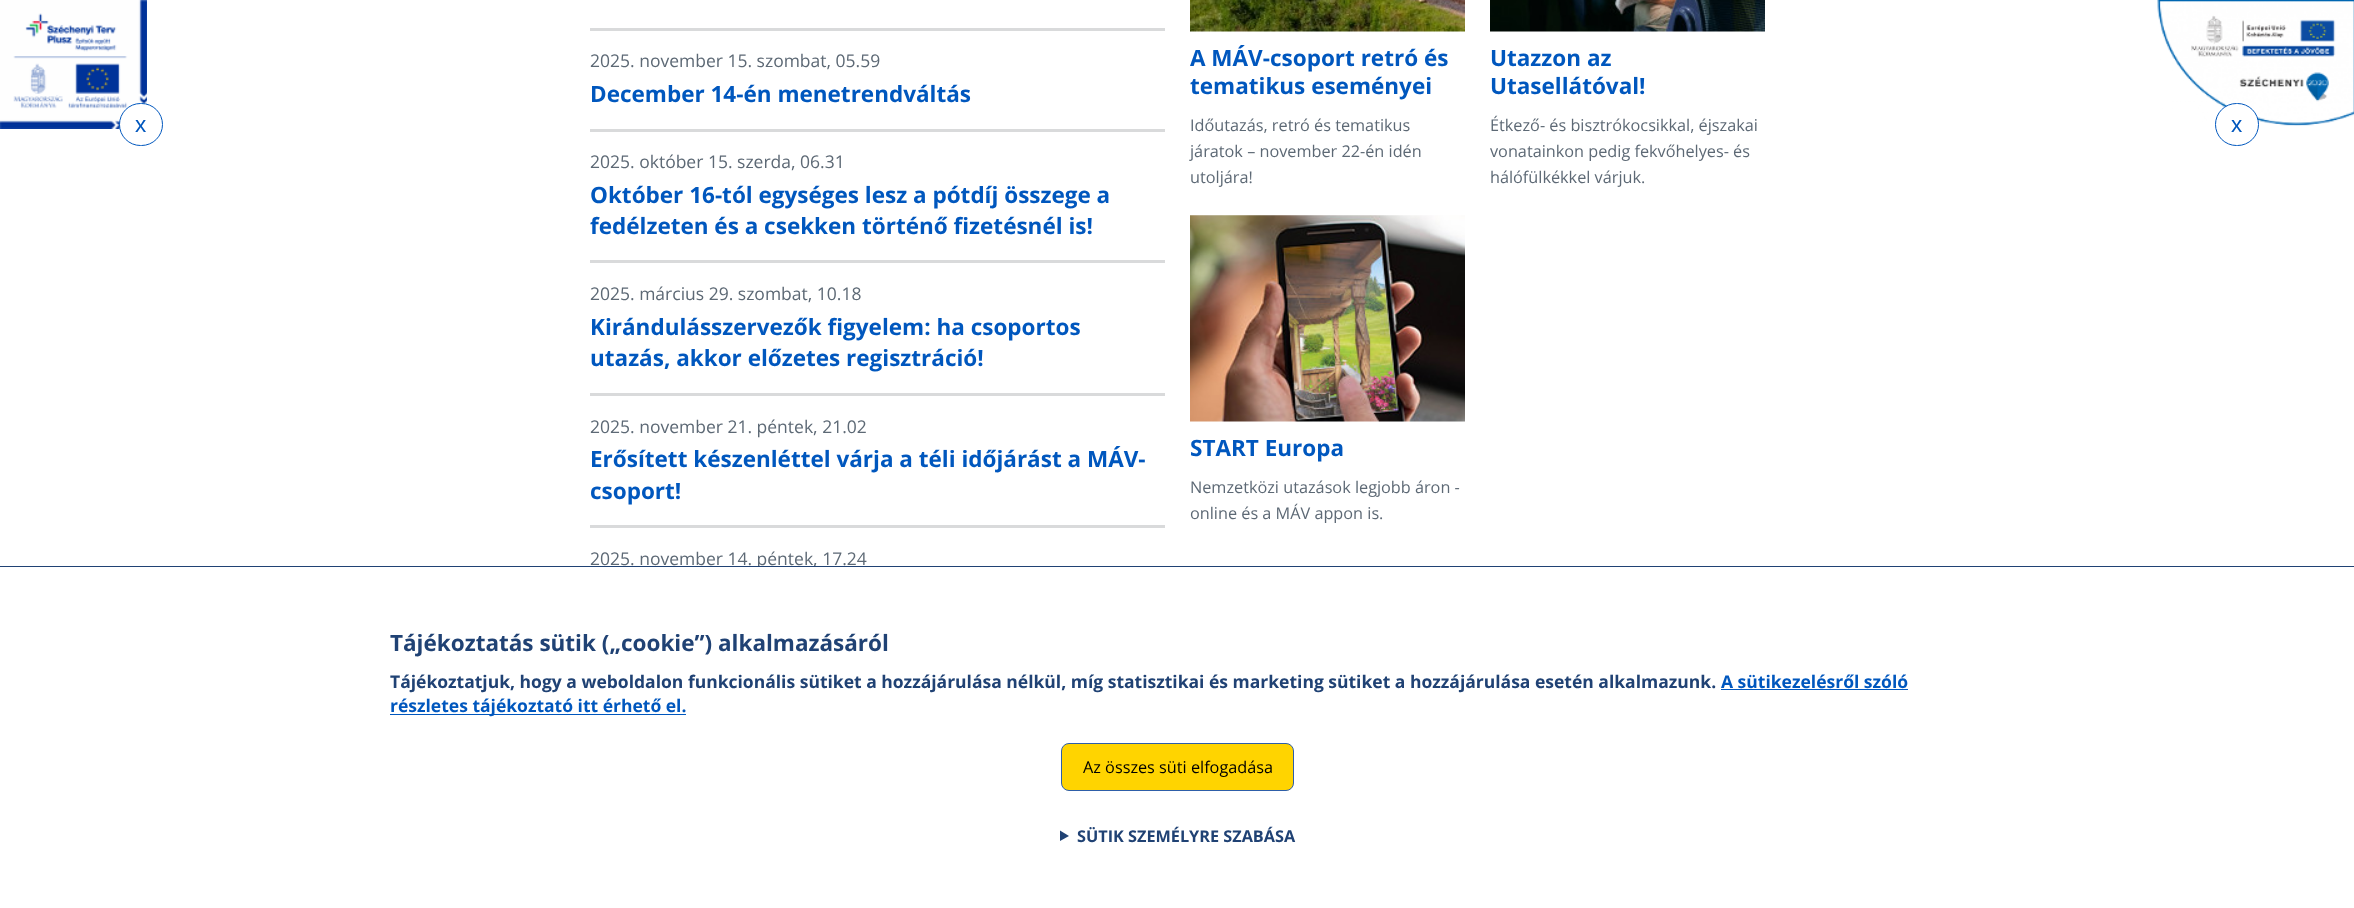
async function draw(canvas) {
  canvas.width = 2354;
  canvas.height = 908;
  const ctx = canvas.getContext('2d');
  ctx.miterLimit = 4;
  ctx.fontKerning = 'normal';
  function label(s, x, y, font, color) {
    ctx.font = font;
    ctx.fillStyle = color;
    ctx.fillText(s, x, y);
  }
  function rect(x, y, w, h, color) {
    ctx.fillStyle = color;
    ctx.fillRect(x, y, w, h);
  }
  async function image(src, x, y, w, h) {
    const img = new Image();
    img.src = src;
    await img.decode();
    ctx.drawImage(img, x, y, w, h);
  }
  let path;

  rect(0, 0, 2354, 908, '#fff');
  await image('assets/img1.png', 0, 0, 147, 129);
  ctx.beginPath();
  ctx.roundRect(119.5, 103.5, 43, 42, 21);
  ctx.fill();
  ctx.strokeStyle = '#0057be';
  ctx.stroke();
  label('x', 135, 132, '22.5px Liberation Sans', '#0057be');
  rect(590, 28, 575, 3, '#d9dadb');
  rect(590, 129, 575, 3, '#d9dadb');
  label('2025. november 15. szombat, 05.59', 590, 67, '17.5px Open Sans', '#5d6975');
  label('December 14-én menetrendváltás', 590, 102, 'bold 22.5px Open Sans', '#0057be');
  rect(590, 260, 575, 3, '#d9dadb');
  label('2025. október 15. szerda, 06.31', 590, 168, '17.5px Open Sans', '#5d6975');
  label('Október 16-tól egységes lesz a pótdíj összege a', 590, 203, 'bold 22.5px Open Sans', '#0057be');
  label('fedélzeten és a csekken történő fizetésnél is!', 590, 234, 'bold 22.5px Open Sans', '#0057be');
  rect(590, 393, 575, 3, '#d9dadb');
  label('2025. március 29. szombat, 10.18', 590, 300, '17.5px Open Sans', '#5d6975');
  label('Kirándulásszervezők figyelem: ha csoportos', 590, 335, 'bold 22.5px Open Sans', '#0057be');
  label('utazás, akkor előzetes regisztráció!', 590, 366, 'bold 22.5px Open Sans', '#0057be');
  rect(590, 525, 575, 3, '#d9dadb');
  label('2025. november 21. péntek, 21.02', 590, 433, '17.5px Open Sans', '#5d6975');
  label('Erősített készenléttel várja a téli időjárást a MÁV-', 590, 467, 'bold 22.5px Open Sans', '#0057be');
  label('csoport!', 590, 499, 'bold 22.5px Open Sans', '#0057be');
  label('2025. november 14. péntek, 17.24', 590, 565, '17.5px Open Sans', '#5d6975');
  await image('assets/img2.png', 1190, 0, 275, 32);
  label('A MÁV-csoport retró és', 1190, 66, 'bold 22.5px Open Sans', '#0057be');
  label('tematikus eseményei', 1190, 94, 'bold 22.5px Open Sans', '#0057be');
  label('Időutazás, retró és tematikus', 1190, 131, '16.25px Open Sans', '#5d6975');
  label('járatok – november 22-én idén', 1190, 157, '16.25px Open Sans', '#5d6975');
  label('utoljára!', 1190, 183, '16.25px Open Sans', '#5d6975');
  await image('assets/img3.png', 1490, 0, 275, 32);
  label('Utazzon az', 1490, 66, 'bold 22.5px Open Sans', '#0057be');
  label('Utasellátóval!', 1490, 94, 'bold 22.5px Open Sans', '#0057be');
  label('Étkező- és bisztrókocsikkal, éjszakai', 1490, 131, '16.25px Open Sans', '#5d6975');
  label('vonatainkon pedig fekvőhelyes- és', 1490, 157, '16.25px Open Sans', '#5d6975');
  label('hálófülkékkel várjuk.', 1490, 183, '16.25px Open Sans', '#5d6975');
  await image('assets/img4.png', 1190, 215, 275, 207);
  label('START Europa', 1190, 456, 'bold 22.5px Open Sans', '#0057be');
  label('Nemzetközi utazások legjobb áron -', 1190, 493, '16.25px Open Sans', '#5d6975');
  label('online és a MÁV appon is.', 1190, 519, '16.25px Open Sans', '#5d6975');
  await image('assets/img5.png', 2157, 0, 197, 126);
  ctx.fillStyle = '#fff';
  ctx.beginPath();
  ctx.roundRect(2215.5, 103.5, 43, 42, 21);
  ctx.fill();
  ctx.stroke();
  label('x', 2231, 132, '22.5px Liberation Sans', '#0057be');
  rect(758, 567, 57, 3, '#fff');
  rect(0, 566, 2354, 1, '#204274');
  label('Tájékoztatás sütik („cookie”) alkalmazásáról', 390, 651, 'bold 22.5px Open Sans', '#204274');
  label('Tájékoztatjuk, hogy a weboldalon funkcionális sütiket a hozzájárulása nélkül, míg statisztikai és marketing sütiket a hozzájárulása esetén alkalmazunk.', 390, 688, 'bold 17.5px Open Sans', '#204274');
  label('A sütikezelésről szóló', 1721, 688, 'bold 17.5px Open Sans', '#0057be');
  rect(1721, 689, 187, 1, '#0057be');
  rect(390, 714, 296, 1, '#0057be');
  label('részletes tájékoztató itt érhető el.', 390, 712, 'bold 17.5px Open Sans', '#0057be');
  ctx.fillStyle = '#ffd400';
  ctx.beginPath();
  ctx.roundRect(1061.5, 743.5, 232, 47, 7.5);
  ctx.fill();
  ctx.strokeStyle = '#2e5ea8';
  ctx.stroke();
  label('Az összes süti elfogadása', 1083, 773, '16.25px Open Sans', '#000');
  ctx.fillStyle = '#204274';
  path = new Path2D('M1060 830.5L1069 836L1060 841Z');
  ctx.fill(path);
  label('SÜTIK SZEMÉLYRE SZABÁSA', 1077, 842, 'bold 16.25px Open Sans', '#204274');
}

draw(document.querySelector('canvas'));
